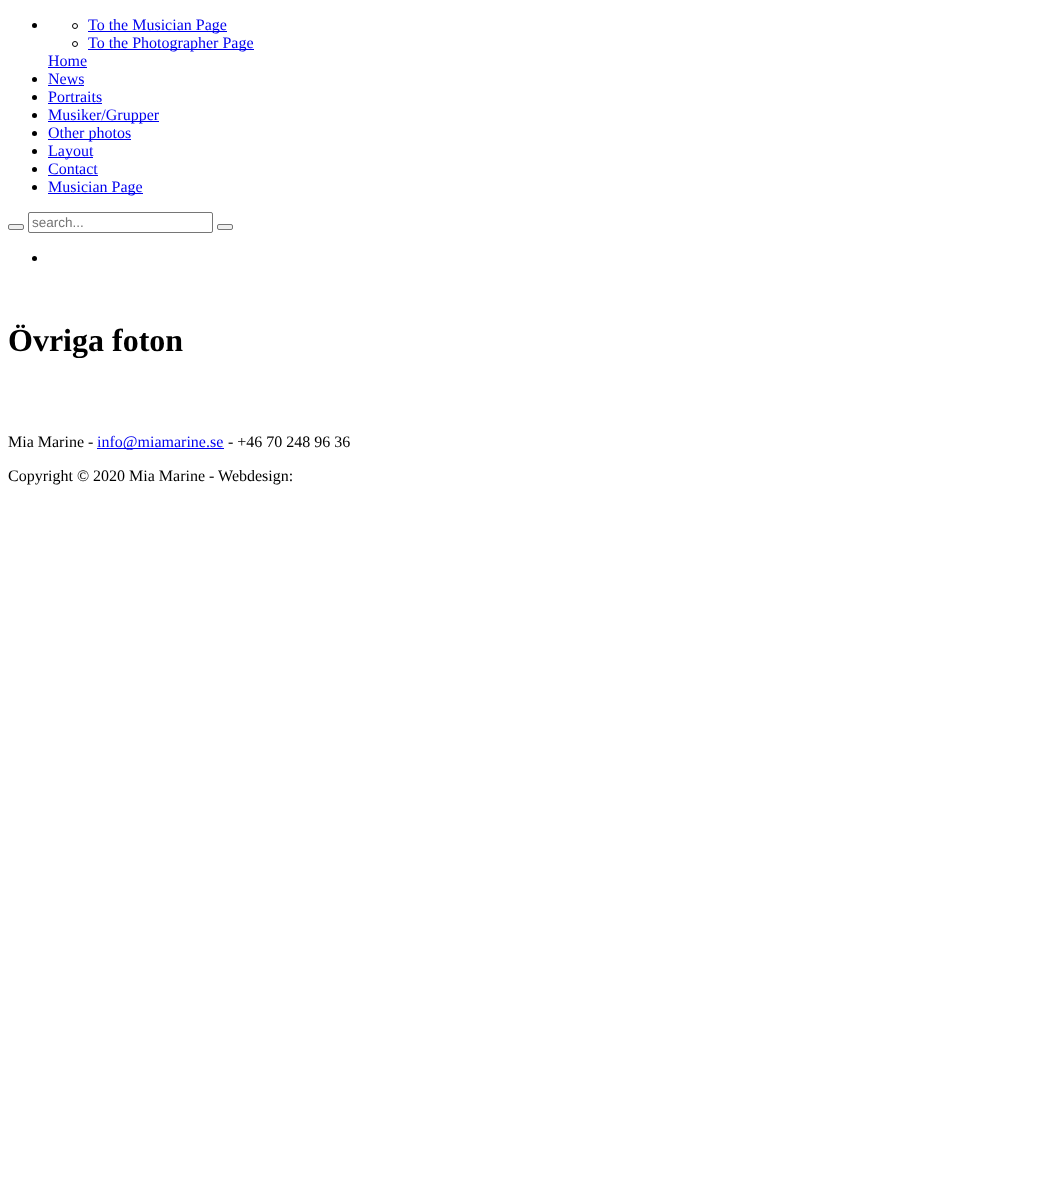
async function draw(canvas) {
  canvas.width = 1055;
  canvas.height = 1178;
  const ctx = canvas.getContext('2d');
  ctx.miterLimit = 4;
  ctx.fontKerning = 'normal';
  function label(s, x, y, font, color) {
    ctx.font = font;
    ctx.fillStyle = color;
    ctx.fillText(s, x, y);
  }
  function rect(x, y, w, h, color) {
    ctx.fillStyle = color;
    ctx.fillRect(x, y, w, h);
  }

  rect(0, 0, 1055, 1178, '#fff');
  ctx.fillStyle = '#000';
  ctx.beginPath();
  ctx.arc(34.5, 25.5, 2.5, 0, 2 * Math.PI);
  ctx.fill();
  ctx.beginPath();
  ctx.arc(75, 26, 2.5, 0, 2 * Math.PI);
  ctx.strokeStyle = '#000';
  ctx.stroke();
  rect(88, 31, 139, 1, '#00e');
  label('To the Musician Page', 88, 30, '16px Liberation Serif', '#00e');
  ctx.beginPath();
  ctx.arc(75, 44, 2.5, 0, 2 * Math.PI);
  ctx.stroke();
  rect(88, 49, 166, 1, '#00e');
  label('To the Photographer Page', 88, 48, '16px Liberation Serif', '#00e');
  label('Home', 48, 66, '16px Liberation Serif', '#00e');
  rect(48, 67, 39, 1, '#00e');
  ctx.fillStyle = '#000';
  ctx.beginPath();
  ctx.arc(34.5, 79.5, 2.5, 0, 2 * Math.PI);
  ctx.fill();
  label('News', 48, 84, '16px Liberation Serif', '#00e');
  rect(48, 85, 36, 1, '#00e');
  ctx.fillStyle = '#000';
  ctx.beginPath();
  ctx.arc(34.5, 97.5, 2.5, 0, 2 * Math.PI);
  ctx.fill();
  label('Portraits', 48, 102, '16px Liberation Serif', '#00e');
  rect(48, 103, 54, 1, '#00e');
  ctx.fillStyle = '#000';
  ctx.beginPath();
  ctx.arc(34.5, 115.5, 2.5, 0, 2 * Math.PI);
  ctx.fill();
  rect(48, 121, 111, 1, '#00e');
  label('Musiker/Grupper', 48, 120, '16px Liberation Serif', '#00e');
  ctx.fillStyle = '#000';
  ctx.beginPath();
  ctx.arc(34.5, 133.5, 2.5, 0, 2 * Math.PI);
  ctx.fill();
  rect(48, 139, 83, 1, '#00e');
  label('Other photos', 48, 138, '16px Liberation Serif', '#00e');
  ctx.fillStyle = '#000';
  ctx.beginPath();
  ctx.arc(34.5, 151.5, 2.5, 0, 2 * Math.PI);
  ctx.fill();
  rect(48, 157, 45, 1, '#00e');
  label('Layout', 48, 156, '16px Liberation Serif', '#00e');
  ctx.fillStyle = '#000';
  ctx.beginPath();
  ctx.arc(34.5, 169.5, 2.5, 0, 2 * Math.PI);
  ctx.fill();
  label('Contact', 48, 174, '16px Liberation Serif', '#00e');
  rect(48, 175, 50, 1, '#00e');
  ctx.fillStyle = '#000';
  ctx.beginPath();
  ctx.arc(34.5, 187.5, 2.5, 0, 2 * Math.PI);
  ctx.fill();
  rect(48, 193, 95, 1, '#00e');
  label('Musician Page', 48, 192, '16px Liberation Serif', '#00e');
  ctx.fillStyle = '#efefef';
  ctx.beginPath();
  ctx.roundRect(8.5, 224.5, 15, 5, 1.5);
  ctx.fill();
  ctx.strokeStyle = '#767676';
  ctx.stroke();
  ctx.beginPath();
  ctx.roundRect(28.5, 212.5, 184, 20, 1.5);
  ctx.stroke();
  label('search...', 32, 227, '13.5px Liberation Sans', '#757575');
  ctx.fillStyle = '#efefef';
  ctx.beginPath();
  ctx.roundRect(217.5, 224.5, 15, 5, 1.5);
  ctx.fill();
  ctx.stroke();
  ctx.fillStyle = '#000';
  ctx.beginPath();
  ctx.arc(34.5, 258.5, 2.5, 0, 2 * Math.PI);
  ctx.fill();
  label('Övriga foton', 8, 351, 'bold 32px Liberation Serif', '#000');
  label('Mia Marine -', 8, 447, '16px Liberation Serif', '#000');
  rect(97, 448, 127, 1, '#00e');
  label('info@miamarine.se', 97, 447, '16px Liberation Serif', '#00e');
  label('- +46 70 248 96 36', 228, 447, '16px Liberation Serif', '#000');
  label('Copyright © 2020 Mia Marine - Webdesign:', 8, 481, '16px Liberation Serif', '#000');
}

draw(document.querySelector('canvas'));
